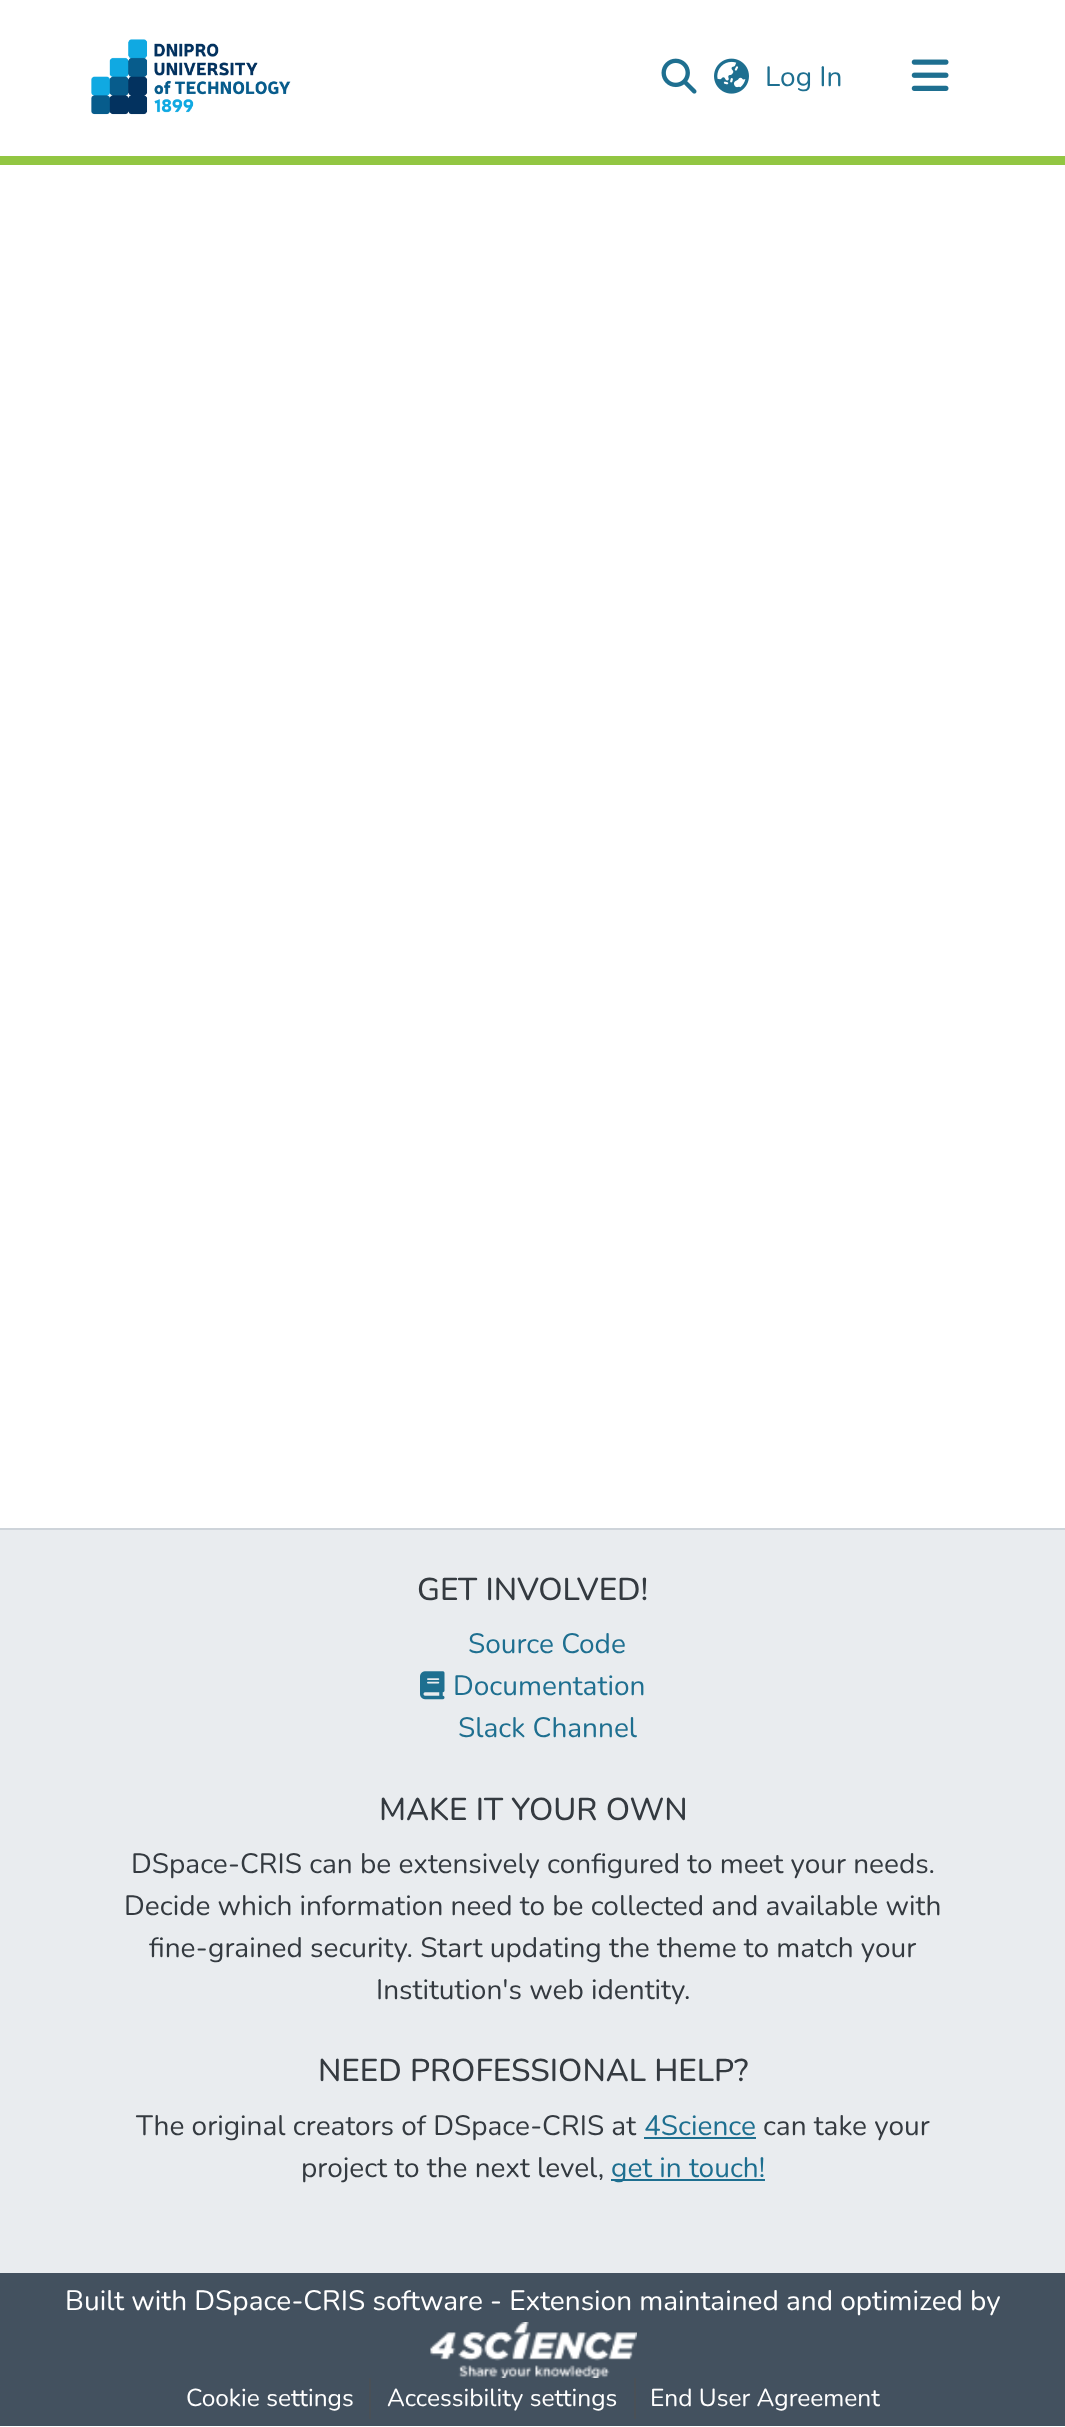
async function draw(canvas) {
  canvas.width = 1065;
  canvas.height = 2427;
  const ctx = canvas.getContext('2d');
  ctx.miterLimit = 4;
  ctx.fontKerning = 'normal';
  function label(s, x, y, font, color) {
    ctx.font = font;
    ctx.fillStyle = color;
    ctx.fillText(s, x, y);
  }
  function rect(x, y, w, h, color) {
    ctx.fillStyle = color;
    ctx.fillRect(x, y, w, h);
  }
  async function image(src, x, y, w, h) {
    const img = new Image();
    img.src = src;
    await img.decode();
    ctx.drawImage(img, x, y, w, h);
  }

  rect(0, 0, 1065, 2427, '#fff');
  rect(0, 156, 1065, 9, '#92c642');
  await image('assets/img1.png', 91, 39, 200, 76);
  await image('assets/img2.png', 661, 58, 36, 36);
  await image('assets/img3.png', 714, 58, 35, 36);
  label('Log In', 765, 86, '28px Nunito', '#1e6f90');
  await image('assets/img4.png', 911, 59, 38, 32);
  rect(0, 2273, 1065, 153, '#43515f');
  rect(0, 1528, 1065, 2, '#ced4da');
  rect(0, 1530, 1065, 743, '#e9ecef');
  label('GET INVOLVED!', 417, 1600, '500 31.5px Nunito', '#343a40');
  label('Source Code', 468, 1653, '28px Nunito', '#1e6f90');
  await image('assets/img5.png', 420, 1671, 25, 29);
  label('Documentation', 453, 1695, '28px Nunito', '#1e6f90');
  label('Slack Channel', 458, 1737, '28px Nunito', '#1e6f90');
  label('MAKE IT YOUR OWN', 379, 1820, '500 31.5px Nunito', '#343a40');
  label('DSpace-CRIS can be extensively configured to meet your needs.', 131, 1873, '28px Nunito', '#343a40');
  label('Decide which information need to be collected and available with', 124, 1915, '28px Nunito', '#343a40');
  label('fine-grained security. Start updating the theme to match your', 149, 1957, '28px Nunito', '#343a40');
  label('Institution\'s web identity.', 376, 1999, '28px Nunito', '#343a40');
  label('NEED PROFESSIONAL HELP?', 318, 2081, '500 31.5px Nunito', '#343a40');
  label('The original creators of DSpace-CRIS at', 136, 2135, '28px Nunito', '#343a40');
  label('4Science', 644, 2135, '28px Nunito', '#1e6f90');
  rect(644, 2137, 112, 2, '#1e6f90');
  label('can take your', 763, 2135, '28px Nunito', '#343a40');
  label('project to the next level,', 301, 2177, '28px Nunito', '#343a40');
  rect(611, 2179, 154, 2, '#1e6f90');
  label('get in touch!', 611, 2177, '28px Nunito', '#1e6f90');
  label('Built with DSpace-CRIS software - Extension maintained and optimized by', 65, 2310, '28px Nunito', '#fff');
  await image('assets/img6.png', 430, 2322, 207, 56);
  label('Cookie settings', 186, 2406, '24.5px Nunito', '#fff');
  rect(369, 2378, 2, 41, '#495057');
  label('Accessibility settings', 387, 2406, '24.5px Nunito', '#fff');
  rect(634, 2378, 2, 41, '#495057');
  label('End User Agreement', 650, 2406, '24.5px Nunito', '#fff');
}

draw(document.querySelector('canvas'));
